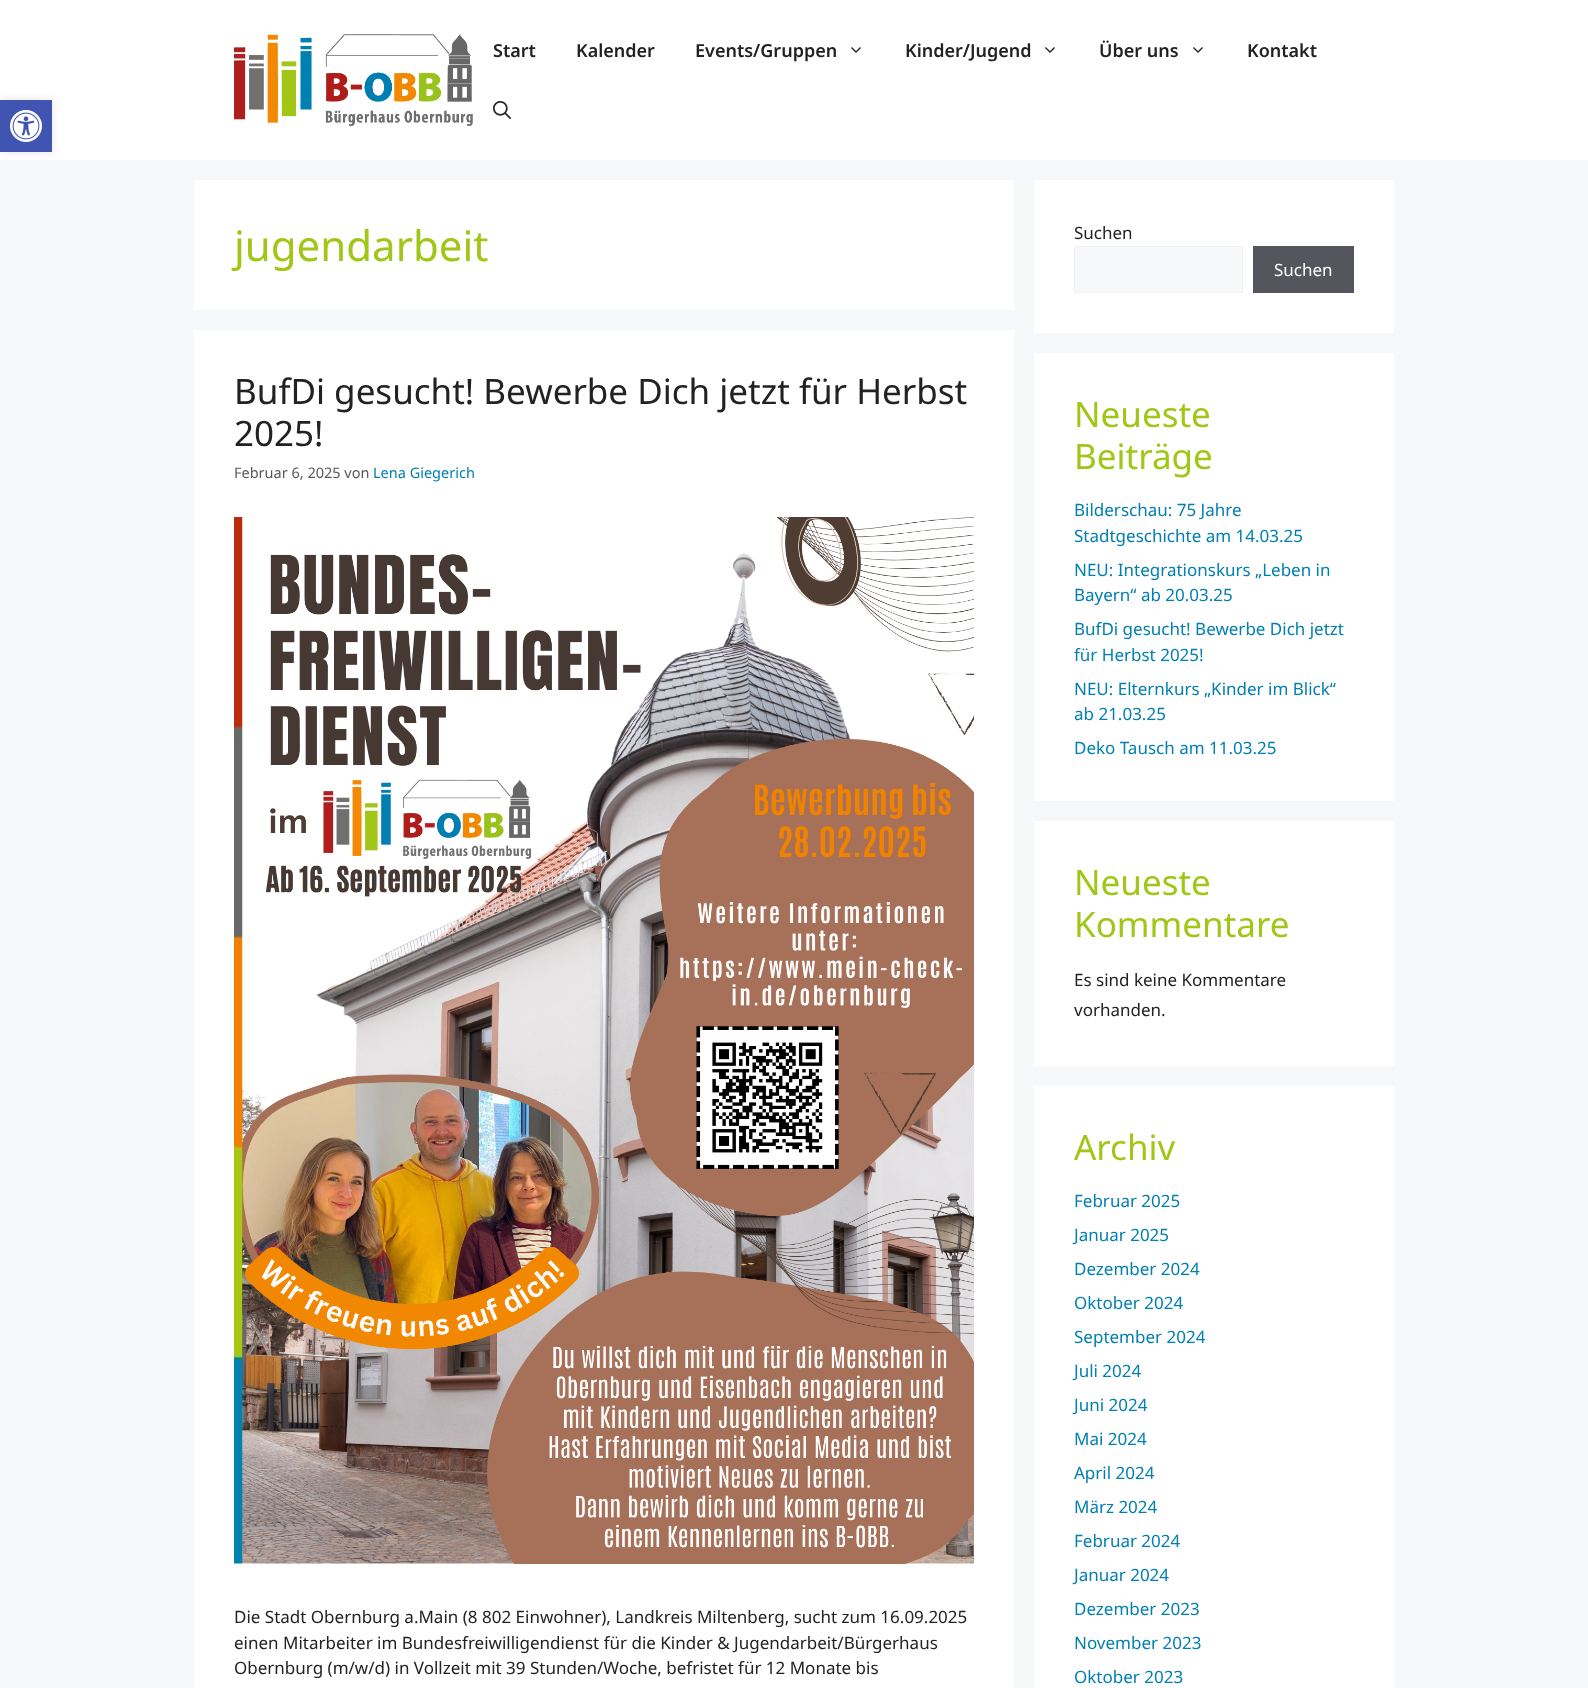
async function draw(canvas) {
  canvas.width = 1588;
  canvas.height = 1688;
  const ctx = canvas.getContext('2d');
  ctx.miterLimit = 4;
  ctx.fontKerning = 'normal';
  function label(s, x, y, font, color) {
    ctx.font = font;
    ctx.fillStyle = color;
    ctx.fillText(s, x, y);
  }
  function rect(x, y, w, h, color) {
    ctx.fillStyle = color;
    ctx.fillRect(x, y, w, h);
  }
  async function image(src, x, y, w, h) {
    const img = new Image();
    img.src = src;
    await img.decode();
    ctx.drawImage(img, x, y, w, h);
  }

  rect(0, 0, 1588, 1688, '#f7f8f9');
  rect(0, 0, 1588, 160, '#fff');
  await image('assets/img1.png', 234, 34, 239, 92);
  label('Start', 493, 57, '600 18px Noto Sans', '#222');
  label('Kalender', 576, 57, '600 18px Noto Sans', '#222');
  label('Events/Gruppen', 695, 57, '600 18px Noto Sans', '#222');
  await image('assets/img2.png', 851, 47, 10, 6);
  label('Kinder/Jugend', 905, 57, '600 18px Noto Sans', '#222');
  await image('assets/img2.png', 1045, 47, 10, 6);
  label('Über uns', 1099, 57, '600 18px Noto Sans', '#222');
  await image('assets/img2.png', 1193, 47, 10, 6);
  label('Kontakt', 1247, 57, '600 18px Noto Sans', '#222');
  await image('assets/img3.png', 493, 101, 18, 18);
  ctx.fillStyle = '#0000001a';
  ctx.filter = 'blur(5px)';
  ctx.beginPath();
  ctx.rect(0, 100, 52, 52);
  ctx.fill();
  ctx.filter = 'none';
  rect(0, 100, 52, 52, '#4054b2');
  await image('assets/img4.png', 10, 110, 32, 32);
  rect(194, 180, 820, 130, '#fff');
  label('jugendarbeit', 234, 261, '42px Noto Sans', '#a2c617');
  rect(194, 330, 820, 1358, '#fff');
  label('BufDi gesucht! Bewerbe Dich jetzt für Herbst', 234, 404, '35px Noto Sans', '#222');
  label('2025!', 234, 446, '35px Noto Sans', '#222');
  label('Februar 6, 2025 von', 234, 478, '14.5px Noto Sans', '#575760');
  label('Lena Giegerich', 373, 478, '14.5px Noto Sans', '#007fb1');
  await image('assets/img5.png', 234, 517, 740, 1047);
  label('Die Stadt Obernburg a.Main (8 802 Einwohner), Landkreis Miltenberg, sucht zum 16.09.2025', 234, 1623, '17px Noto Sans', '#222');
  label('einen Mitarbeiter im Bundesfreiwilligendienst für die Kinder & Jugendarbeit/Bürgerhaus', 234, 1649, '17px Noto Sans', '#222');
  label('Obernburg (m/w/d) in Vollzeit mit 39 Stunden/Woche, befristet für 12 Monate bis', 234, 1674, '17px Noto Sans', '#222');
  rect(1034, 180, 360, 153, '#fff');
  label('Suchen', 1074, 239, '17px Noto Sans', '#222');
  ctx.fillStyle = '#f7f8f9';
  ctx.beginPath();
  ctx.rect(1074.5, 246.5, 168, 46);
  ctx.fill();
  ctx.strokeStyle = '#f0f0f0';
  ctx.stroke();
  rect(1253, 246, 101, 47, '#55555e');
  label('Suchen', 1274, 276, '17px Noto Sans', '#fff');
  rect(1034, 353, 360, 448, '#fff');
  label('Neueste', 1074, 427, '35px Noto Sans', '#a2c617');
  label('Beiträge', 1074, 469, '35px Noto Sans', '#a2c617');
  label('Bilderschau: 75 Jahre', 1074, 516, '17px Noto Sans', '#007fb1');
  label('Stadtgeschichte am 14.03.25', 1074, 542, '17px Noto Sans', '#007fb1');
  label('NEU: Integrationskurs „Leben in', 1074, 576, '17px Noto Sans', '#007fb1');
  label('Bayern“ ab 20.03.25', 1074, 601, '17px Noto Sans', '#007fb1');
  label('BufDi gesucht! Bewerbe Dich jetzt', 1074, 635, '17px Noto Sans', '#007fb1');
  label('für Herbst 2025!', 1074, 661, '17px Noto Sans', '#007fb1');
  label('NEU: Elternkurs „Kinder im Blick“', 1074, 695, '17px Noto Sans', '#007fb1');
  label('ab 21.03.25', 1074, 720, '17px Noto Sans', '#007fb1');
  label('Deko Tausch am 11.03.25', 1074, 754, '17px Noto Sans', '#007fb1');
  rect(1034, 821, 360, 245, '#fff');
  label('Neueste', 1074, 895, '35px Noto Sans', '#a2c617');
  label('Kommentare', 1074, 937, '35px Noto Sans', '#a2c617');
  label('Es sind keine Kommentare', 1074, 986, '17px Noto Sans', '#222');
  label('vorhanden.', 1074, 1016, '17px Noto Sans', '#222');
  rect(1034, 1086, 360, 602, '#fff');
  label('Archiv', 1074, 1160, '35px Noto Sans', '#a2c617');
  label('Februar 2025', 1074, 1207, '17px Noto Sans', '#007fb1');
  label('Januar 2025', 1074, 1241, '17px Noto Sans', '#007fb1');
  label('Dezember 2024', 1074, 1275, '17px Noto Sans', '#007fb1');
  label('Oktober 2024', 1074, 1309, '17px Noto Sans', '#007fb1');
  label('September 2024', 1074, 1343, '17px Noto Sans', '#007fb1');
  label('Juli 2024', 1074, 1377, '17px Noto Sans', '#007fb1');
  label('Juni 2024', 1074, 1411, '17px Noto Sans', '#007fb1');
  label('Mai 2024', 1074, 1445, '17px Noto Sans', '#007fb1');
  label('April 2024', 1074, 1479, '17px Noto Sans', '#007fb1');
  label('März 2024', 1074, 1513, '17px Noto Sans', '#007fb1');
  label('Februar 2024', 1074, 1547, '17px Noto Sans', '#007fb1');
  label('Januar 2024', 1074, 1581, '17px Noto Sans', '#007fb1');
  label('Dezember 2023', 1074, 1615, '17px Noto Sans', '#007fb1');
  label('November 2023', 1074, 1649, '17px Noto Sans', '#007fb1');
  label('Oktober 2023', 1074, 1683, '17px Noto Sans', '#007fb1');
}

draw(document.querySelector('canvas'));
